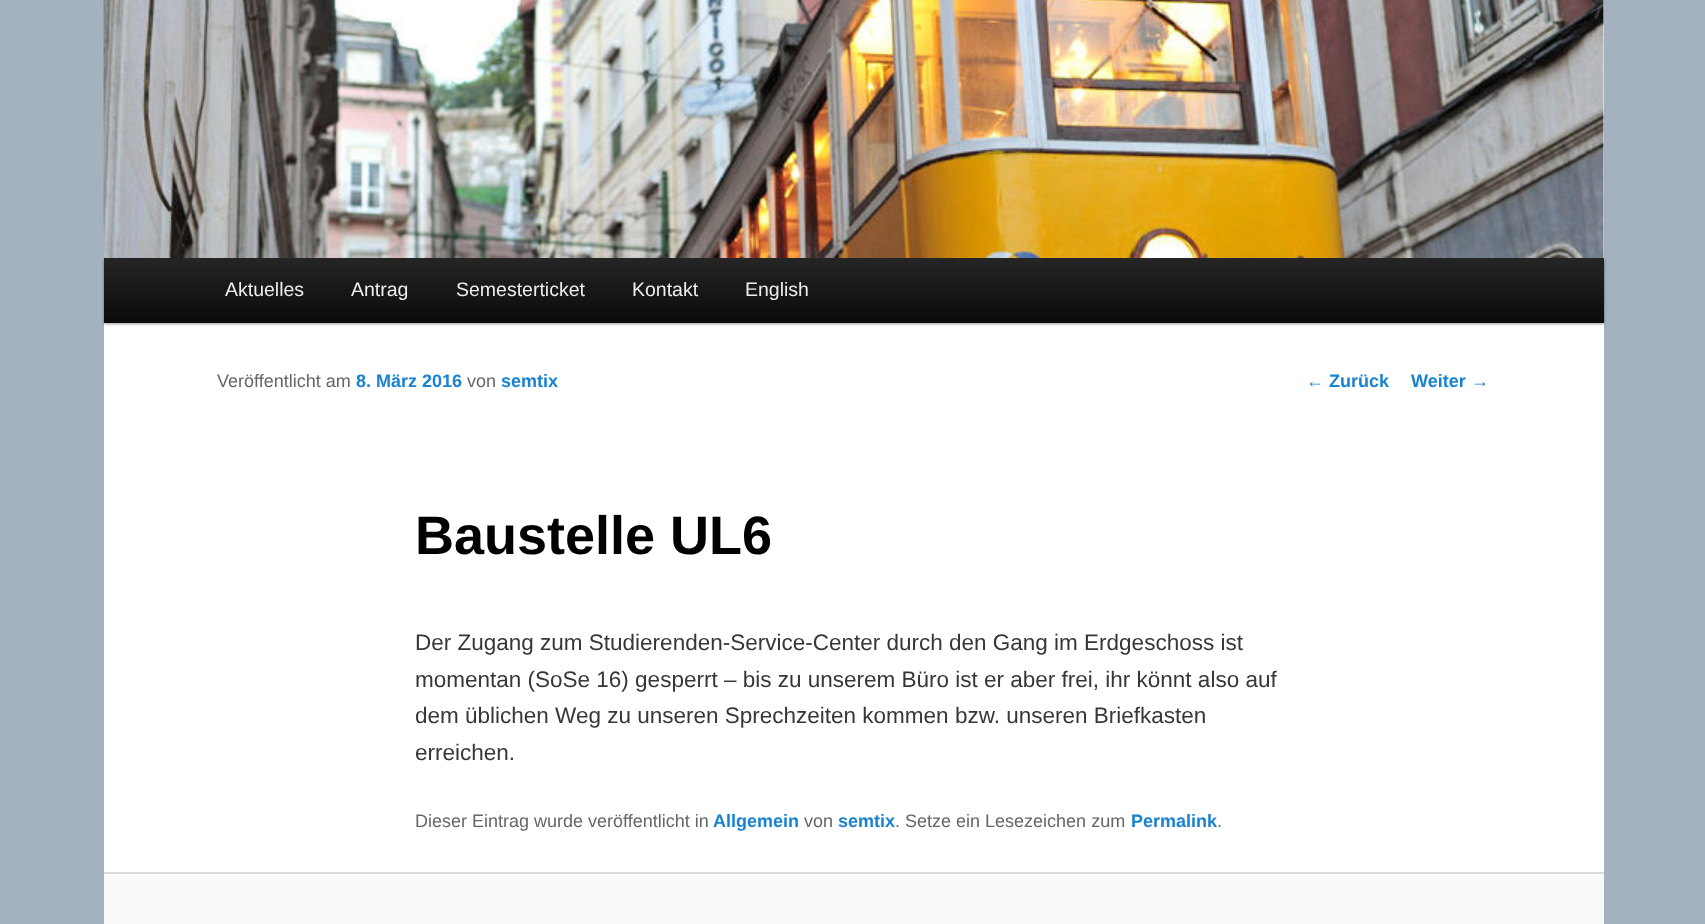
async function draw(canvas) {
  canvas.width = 1705;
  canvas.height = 924;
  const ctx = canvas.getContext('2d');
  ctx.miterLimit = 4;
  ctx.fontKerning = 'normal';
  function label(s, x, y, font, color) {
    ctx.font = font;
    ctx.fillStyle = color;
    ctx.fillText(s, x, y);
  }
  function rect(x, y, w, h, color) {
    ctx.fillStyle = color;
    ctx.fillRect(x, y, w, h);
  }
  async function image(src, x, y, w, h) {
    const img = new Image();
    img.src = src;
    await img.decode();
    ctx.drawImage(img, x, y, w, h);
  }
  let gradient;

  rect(0, 0, 1705, 924, '#a4b2bf');
  rect(104, 0, 1500, 872, '#fff');
  ctx.fillStyle = '#00000066';
  ctx.filter = 'blur(1.5px)';
  ctx.beginPath();
  ctx.rect(104, 260, 1500, 64);
  ctx.fill();
  ctx.filter = 'none';
  await image('assets/img1.png', 103, 0, 1501, 258);
  gradient = ctx.createLinearGradient(854, 258, 854, 323);
  gradient.addColorStop(0, '#252525');
  gradient.addColorStop(1, '#0a0a0a');
  ctx.fillStyle = gradient;
  ctx.fillRect(104, 258, 1500, 65);
  label('Aktuelles', 225, 296, '19.5px Liberation Sans', '#eee');
  label('Antrag', 351, 296, '19.5px Liberation Sans', '#eee');
  label('Semesterticket', 456, 296, '19.5px Liberation Sans', '#eee');
  label('Kontakt', 632, 296, '19.5px Liberation Sans', '#eee');
  label('English', 745, 296, '19.5px Liberation Sans', '#eee');
  label('Veröffentlicht am', 217, 387, '18px Liberation Sans', '#666');
  label('8. März 2016', 356, 387, 'bold 18px Liberation Sans', '#1982d1');
  label('von', 467, 387, '18px Liberation Sans', '#666');
  label('semtix', 501, 387, 'bold 18px Liberation Sans', '#1982d1');
  label('Baustelle UL6', 415, 554, 'bold 54px Liberation Sans', '#000');
  label('Der Zugang zum Studierenden-Service-Center durch den Gang im Erdgeschoss ist', 415, 650, '22.5px Liberation Sans', '#373737');
  label('momentan (SoSe 16) gesperrt – bis zu unserem Büro ist er aber frei, ihr könnt also auf', 415, 687, '22.5px Liberation Sans', '#373737');
  label('dem üblichen Weg zu unseren Sprechzeiten kommen bzw. unseren Briefkasten', 415, 723, '22.5px Liberation Sans', '#373737');
  label('erreichen.', 415, 760, '22.5px Liberation Sans', '#373737');
  label('Dieser Eintrag wurde veröffentlicht in', 415, 827, '18px Liberation Sans', '#666');
  label('Allgemein', 713, 827, 'bold 18px Liberation Sans', '#1982d1');
  label('von', 804, 827, '18px Liberation Sans', '#666');
  label('semtix', 838, 827, 'bold 18px Liberation Sans', '#1982d1');
  label('. Setze ein Lesezeichen zum', 895, 827, '18px Liberation Sans', '#666');
  label('Permalink', 1131, 827, 'bold 18px Liberation Sans', '#1982d1');
  label('.', 1217, 827, '18px Liberation Sans', '#666');
  label('←', 1306, 387, '18px Liberation Sans', '#1982d1');
  label('Zurück', 1329, 387, 'bold 18px Liberation Sans', '#1982d1');
  label('Weiter', 1411, 387, 'bold 18px Liberation Sans', '#1982d1');
  label('→', 1471, 387, '18px Liberation Sans', '#1982d1');
  rect(104, 874, 1500, 50, '#f9f9f9');
  rect(104, 872, 1500, 2, '#ddd');
}

draw(document.querySelector('canvas'));
